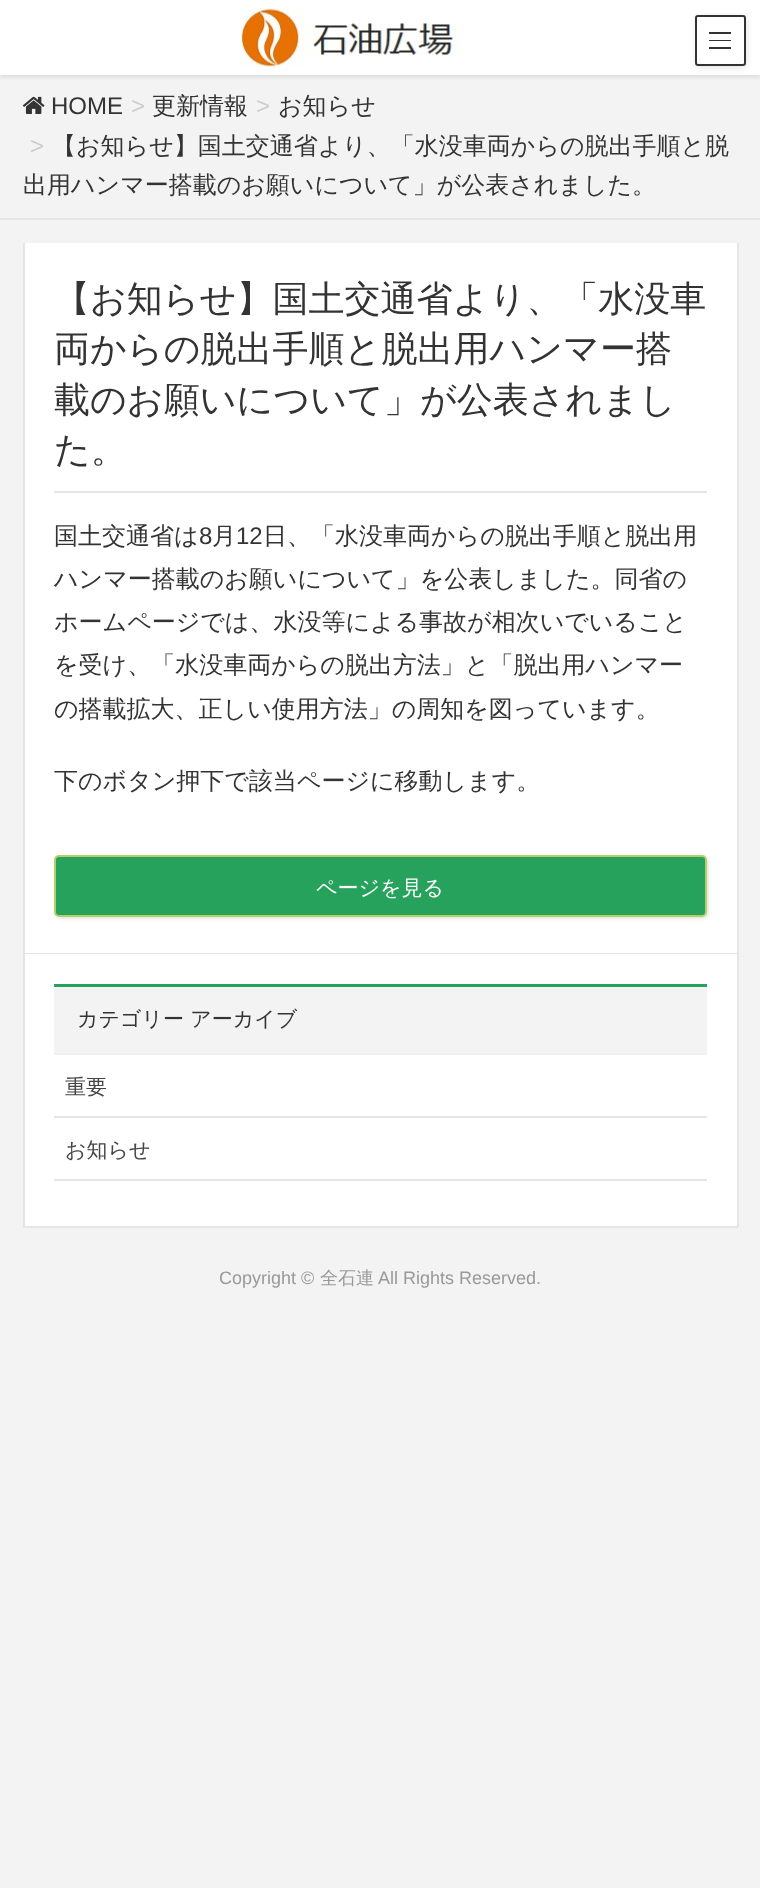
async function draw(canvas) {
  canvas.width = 760;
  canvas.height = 1888;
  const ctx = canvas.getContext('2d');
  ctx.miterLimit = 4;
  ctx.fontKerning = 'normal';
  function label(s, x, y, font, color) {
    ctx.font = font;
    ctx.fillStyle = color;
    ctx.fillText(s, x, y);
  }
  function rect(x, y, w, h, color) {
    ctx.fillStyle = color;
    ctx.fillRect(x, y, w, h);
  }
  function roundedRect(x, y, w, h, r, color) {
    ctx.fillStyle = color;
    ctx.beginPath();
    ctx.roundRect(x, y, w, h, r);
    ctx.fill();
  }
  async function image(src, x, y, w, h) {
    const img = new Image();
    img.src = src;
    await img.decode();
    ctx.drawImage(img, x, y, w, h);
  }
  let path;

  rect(0, 0, 760, 1888, '#f3f3f3');
  ctx.fillStyle = '#0000001a';
  ctx.filter = 'blur(2px)';
  ctx.beginPath();
  ctx.rect(0, 2, 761, 75);
  ctx.fill();
  ctx.filter = 'none';
  rect(0, 0, 760, 75, '#fff');
  await image('assets/img1.png', 240, 7, 223, 61);
  ctx.save();
  path = new Path2D('M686 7H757V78H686ZM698 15H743C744.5 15 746 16.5 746 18V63C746 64.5 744.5 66 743 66H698C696.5 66 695 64.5 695 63V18C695 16.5 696.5 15 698 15Z');
  ctx.clip(path, 'evenodd');
  ctx.fillStyle = '#0000001a';
  ctx.filter = 'blur(3px)';
  ctx.beginPath();
  ctx.roundRect(696, 17, 51, 51, 3);
  ctx.fill();
  ctx.filter = 'none';
  ctx.restore();
  roundedRect(695, 15, 51, 51, 3, '#ffffffcc');
  rect(709, 32, 22, 2, '#333');
  rect(709, 40, 22, 1, '#333');
  rect(709, 47, 22, 2, '#333');
  ctx.beginPath();
  ctx.roundRect(696, 16, 49, 49, 2);
  ctx.strokeStyle = '#333';
  ctx.lineWidth = 2;
  ctx.stroke();
  rect(0, 218, 760, 2, '#e5e5e5');
  await image('assets/img2.png', 22, 96, 23, 18);
  label('HOME', 51, 114, '24px Liberation Sans', '#333');
  label('>', 131, 114, '24px Liberation Sans', '#ccc');
  label('更新情報', 152, 114, '500 24px WenQuanYi Zen Hei', '#333');
  label('>', 256, 114, '24px Liberation Sans', '#ccc');
  label('お知らせ', 278, 114, '500 24px WenQuanYi Zen Hei', '#333');
  label('>', 30, 154, '24px Liberation Sans', '#ccc');
  label('【お知らせ】国土交通省より、「水没車両からの脱出手順と脱', 52, 154, '500 24px WenQuanYi Zen Hei', '#333');
  label('出用ハンマー搭載のお願いについて」が公表されました。', 23, 193, '500 24px WenQuanYi Zen Hei', '#333');
  rect(25, 243, 712, 710, '#fff');
  rect(737, 243, 2, 984, '#e5e5e5');
  rect(23, 953, 715, 1, '#e5e5e5');
  rect(23, 243, 2, 711, '#e5e5e5');
  rect(54, 491, 653, 2, '#e5e5e5');
  label('【お知らせ】国土交通省より、「水没車', 54, 311, '500 36px WenQuanYi Zen Hei', '#333');
  label('両からの脱出手順と脱出用ハンマー搭', 54, 361, '500 36px WenQuanYi Zen Hei', '#333');
  label('載のお願いについて」が公表されまし', 54, 412, '500 36px WenQuanYi Zen Hei', '#333');
  label('た。', 54, 462, '500 36px WenQuanYi Zen Hei', '#333');
  label('国土交通省は', 54, 544, '500 24px WenQuanYi Zen Hei', '#333');
  label('8', 199, 544, '24px Liberation Sans', '#333');
  label('月', 212, 544, '500 24px WenQuanYi Zen Hei', '#333');
  label('12', 236, 544, '24px Liberation Sans', '#333');
  label('日、「水没車両からの脱出手順と脱出用', 263, 544, '500 24px WenQuanYi Zen Hei', '#333');
  label('ハンマー搭載のお願いについて」を公表しました。同省の', 54, 587, '500 24px WenQuanYi Zen Hei', '#333');
  label('ホームページでは、水没等による事故が相次いでいること', 54, 630, '500 24px WenQuanYi Zen Hei', '#333');
  label('を受け、「水没車両からの脱出方法」と「脱出用ハンマー', 54, 673, '500 24px WenQuanYi Zen Hei', '#333');
  label('の搭載拡大、正しい使用方法」の周知を図っています。', 54, 717, '500 24px WenQuanYi Zen Hei', '#333');
  label('下のボタン押下で該当ページに移動します。', 54, 789, '500 24px WenQuanYi Zen Hei', '#333');
  ctx.fillStyle = '#00000026';
  ctx.filter = 'blur(2px)';
  ctx.beginPath();
  ctx.roundRect(56, 857, 652, 61, 5);
  ctx.fill();
  ctx.filter = 'none';
  ctx.fillStyle = '#27a25d';
  ctx.beginPath();
  ctx.roundRect(55, 856, 651, 60, 4);
  ctx.fill();
  ctx.strokeStyle = '#b5cf67';
  ctx.stroke();
  label('ページを見る', 316, 895, '500 21px WenQuanYi Zen Hei', '#fff');
  rect(25, 954, 712, 272, '#fff');
  rect(23, 1226, 715, 2, '#e5e5e5');
  rect(23, 954, 2, 273, '#e5e5e5');
  rect(54, 987, 653, 66, '#f3f3f3');
  rect(54, 984, 653, 3, '#27a25d');
  rect(54, 1053, 653, 2, '#efefef');
  label('カテゴリー アーカイブ', 77, 1026, '500 21px WenQuanYi Zen Hei', '#333');
  rect(54, 1116, 653, 2, '#e5e5e5');
  label('重要', 65, 1094, '500 21px WenQuanYi Zen Hei', '#464646');
  rect(54, 1179, 653, 2, '#e5e5e5');
  label('お知らせ', 65, 1157, '500 21px WenQuanYi Zen Hei', '#464646');
  label('Copyright ©', 219, 1284, '18px Liberation Sans', '#999');
  label('全石連', 320, 1284, '500 18px WenQuanYi Zen Hei', '#999');
  label('All Rights Reserved.', 378, 1284, '18px Liberation Sans', '#999');
}

draw(document.querySelector('canvas'));
